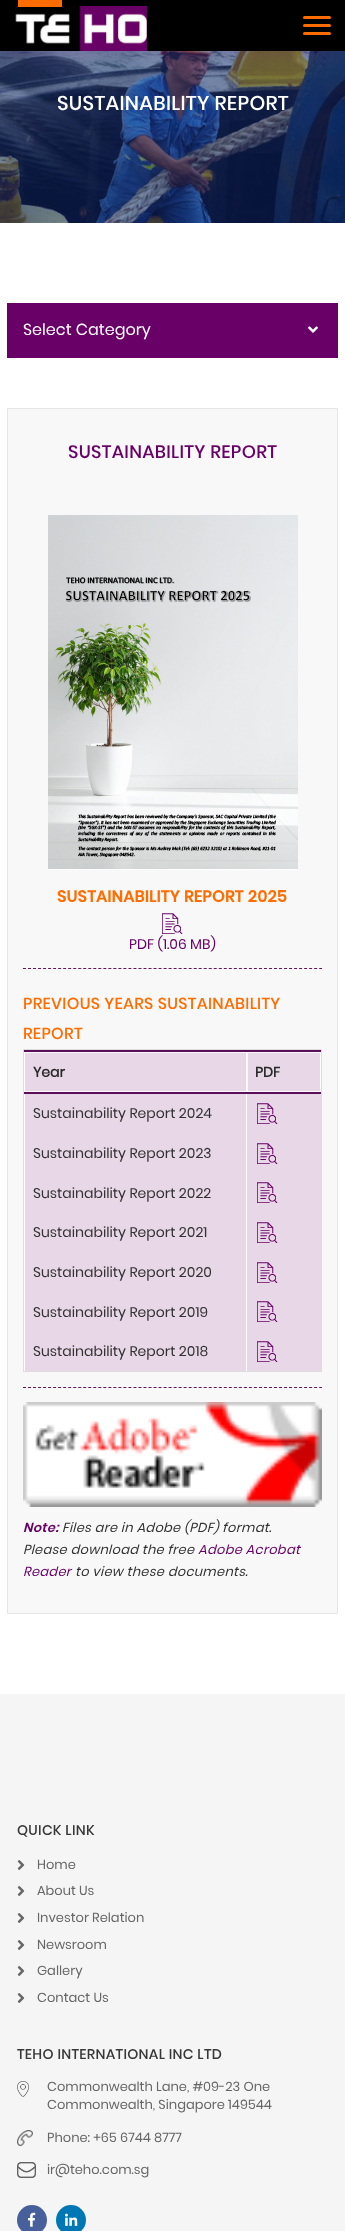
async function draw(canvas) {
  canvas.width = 345;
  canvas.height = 2231;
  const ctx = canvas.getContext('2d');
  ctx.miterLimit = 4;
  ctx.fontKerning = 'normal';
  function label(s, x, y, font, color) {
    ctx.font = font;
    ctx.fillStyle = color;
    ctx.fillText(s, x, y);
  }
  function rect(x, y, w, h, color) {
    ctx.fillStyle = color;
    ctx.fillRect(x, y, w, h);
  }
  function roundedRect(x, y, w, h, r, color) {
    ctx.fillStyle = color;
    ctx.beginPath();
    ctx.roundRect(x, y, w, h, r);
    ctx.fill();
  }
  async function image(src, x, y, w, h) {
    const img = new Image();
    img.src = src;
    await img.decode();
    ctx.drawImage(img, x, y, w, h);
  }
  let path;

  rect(0, 0, 345, 2231, '#fff');
  await image('assets/img2.png', 0, 51, 345, 172);
  ctx.fillStyle = '#68006733';
  ctx.filter = 'blur(10px)';
  ctx.beginPath();
  ctx.rect(0, 0, 345, 51);
  ctx.fill();
  ctx.filter = 'none';
  rect(0, 0, 345, 51, '#000');
  await image('assets/img1.png', 15, 6, 132, 45);
  rect(18, 0, 44, 7, '#ff6d00');
  roundedRect(303, 16, 28, 3, 1.5, '#ff6d00');
  roundedRect(303, 24, 28, 3, 1.5, '#ff6d00');
  roundedRect(303, 32, 28, 3, 1.5, '#ff6d00');
  ctx.letterSpacing = '0.3px';
  label('SUSTAINABILITY REPORT', 57, 110, '500 20px Poppins', '#fff');
  rect(7, 303, 331, 55, '#680067');
  ctx.letterSpacing = '0px';
  label('Select Category', 23, 335, '16px Poppins', '#fff');
  await image('assets/img3.png', 308, 326, 10, 7);
  ctx.fillStyle = '#f8f8f8';
  ctx.beginPath();
  ctx.rect(7.5, 408.5, 330, 1205);
  ctx.fill();
  ctx.strokeStyle = '#e5e5e5';
  ctx.stroke();
  ctx.letterSpacing = '0.3px';
  label('SUSTAINABILITY REPORT', 68, 458, '500 18px Poppins', '#680067');
  await image('assets/img4.png', 48, 515, 250, 355);
  label('SUSTAINABILITY REPORT 2025', 57, 902, 'bold 16px Poppins', '#ff6d00');
  await image('assets/img5.png', 162, 913, 21, 21);
  ctx.letterSpacing = '0px';
  label('PDF (1.06 MB)', 129, 949, '14px Poppins', '#680067');
  path = new Path2D('M23 968.5H322');
  ctx.strokeStyle = '#62175a';
  ctx.setLineDash([3, 2.02]);
  ctx.stroke(path);
  ctx.letterSpacing = '0.3px';
  label('PREVIOUS YEARS SUSTAINABILITY', 23, 1009, '500 16px Poppins', '#ff6d00');
  label('REPORT', 23, 1039, '500 16px Poppins', '#ff6d00');
  ctx.strokeStyle = '#ddd';
  ctx.setLineDash([]);
  ctx.strokeRect(23.5, 1049.5, 298, 322);
  rect(25, 1053, 221, 38, '#e7d7e7');
  ctx.letterSpacing = '0px';
  label('Year', 33, 1077, 'bold 14px "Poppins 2"', '#2a2a2a');
  rect(248, 1053, 72, 38, '#e7d7e7');
  rect(320, 1050, 1, 43, '#fff');
  rect(24, 1050, 1, 321, '#fff');
  rect(246, 1050, 1, 321, '#fff');
  rect(24, 1050, 297, 2, '#5c0d57');
  rect(24, 1092, 297, 2, '#5c0d57');
  label('PDF', 255, 1077, 'bold 14px "Poppins 2"', '#2a2a2a');
  rect(25, 1094, 221, 277, '#e7d7e7');
  label('Sustainability Report 2024', 33, 1118, '14px Poppins', '#333');
  rect(247, 1094, 74, 277, '#e7d7e7');
  await image('assets/img6.png', 257, 1103, 21, 21);
  label('Sustainability Report 2023', 33, 1158, '14px Poppins', '#333');
  await image('assets/img6.png', 257, 1143, 21, 21);
  label('Sustainability Report 2022', 33, 1198, '14px Poppins', '#333');
  await image('assets/img6.png', 257, 1182, 21, 21);
  label('Sustainability Report 2021', 33, 1237, '14px Poppins', '#333');
  await image('assets/img6.png', 257, 1222, 21, 21);
  label('Sustainability Report 2020', 33, 1277, '14px Poppins', '#333');
  await image('assets/img6.png', 257, 1262, 21, 21);
  label('Sustainability Report 2019', 33, 1317, '14px Poppins', '#333');
  await image('assets/img6.png', 257, 1301, 21, 21);
  label('Sustainability Report 2018', 33, 1356, '14px Poppins', '#333');
  await image('assets/img6.png', 257, 1341, 21, 21);
  path = new Path2D('M23 1387.5H322');
  ctx.strokeStyle = '#62175a';
  ctx.setLineDash([3, 2.02]);
  ctx.stroke(path);
  await image('assets/img7.png', 23, 1402, 299, 105);
  ctx.letterSpacing = '0.3px';
  label('Note:', 23, 1532, 'italic 600 13px Poppins', '#680067');
  label('Files are in Adobe (PDF) format.', 62, 1532, 'italic 13px Poppins', '#333');
  label('Please download the free', 23, 1554, 'italic 13px Poppins', '#333');
  label('Adobe Acrobat', 198, 1554, 'italic 13px Poppins', '#680067');
  label('Reader', 23, 1576, 'italic 13px Poppins', '#680067');
  label('to view these documents.', 75, 1576, 'italic 13px Poppins', '#333');
  rect(0, 1694, 345, 537, '#f5f5f5');
  label('QUICK LINK', 17, 1835, '500 14px Poppins', '#38383a');
  await image('assets/img8.png', 17, 1860, 8, 10);
  ctx.letterSpacing = '0px';
  label('Home', 37, 1869, '13px Poppins', '#676767');
  await image('assets/img8.png', 17, 1886, 8, 10);
  label('About Us', 37, 1895, '13px Poppins', '#676767');
  await image('assets/img8.png', 17, 1913, 8, 10);
  label('Investor Relation', 37, 1922, '13px Poppins', '#676767');
  await image('assets/img8.png', 17, 1940, 8, 10);
  label('Newsroom', 37, 1949, '13px Poppins', '#676767');
  await image('assets/img8.png', 17, 1966, 8, 10);
  label('Gallery', 37, 1975, '13px Poppins', '#676767');
  await image('assets/img8.png', 17, 1993, 8, 10);
  label('Contact Us', 37, 2002, '13px Poppins', '#676767');
  ctx.letterSpacing = '0.3px';
  label('TEHO INTERNATIONAL INC LTD', 17, 2059, '500 14px Poppins', '#38383a');
  await image('assets/img9.png', 17, 2081, 12, 16);
  ctx.letterSpacing = '0px';
  label('Commonwealth Lane, #09-23 One', 47, 2091, '13px Poppins', '#676767');
  label('Commonwealth, Singapore 149544', 47, 2109, '13px Poppins', '#676767');
  await image('assets/img10.png', 17, 2130, 16, 16);
  label('Phone: +65 6744 8777', 47, 2142, '13px Poppins', '#676767');
  await image('assets/img11.png', 17, 2162, 19, 16);
  label('ir@teho.com.sg', 47, 2174, '13px Poppins', '#676767');
  ctx.fillStyle = '#475f9b';
  ctx.beginPath();
  ctx.arc(32, 2220, 15, 0, 2 * Math.PI);
  ctx.fill();
  await image('assets/img12.png', 28, 2212, 8, 15);
  ctx.fillStyle = '#0077b5';
  ctx.beginPath();
  ctx.arc(71, 2220, 15, 0, 2 * Math.PI);
  ctx.fill();
  await image('assets/img13.png', 65, 2213, 13, 13);
}

draw(document.querySelector('canvas'));
